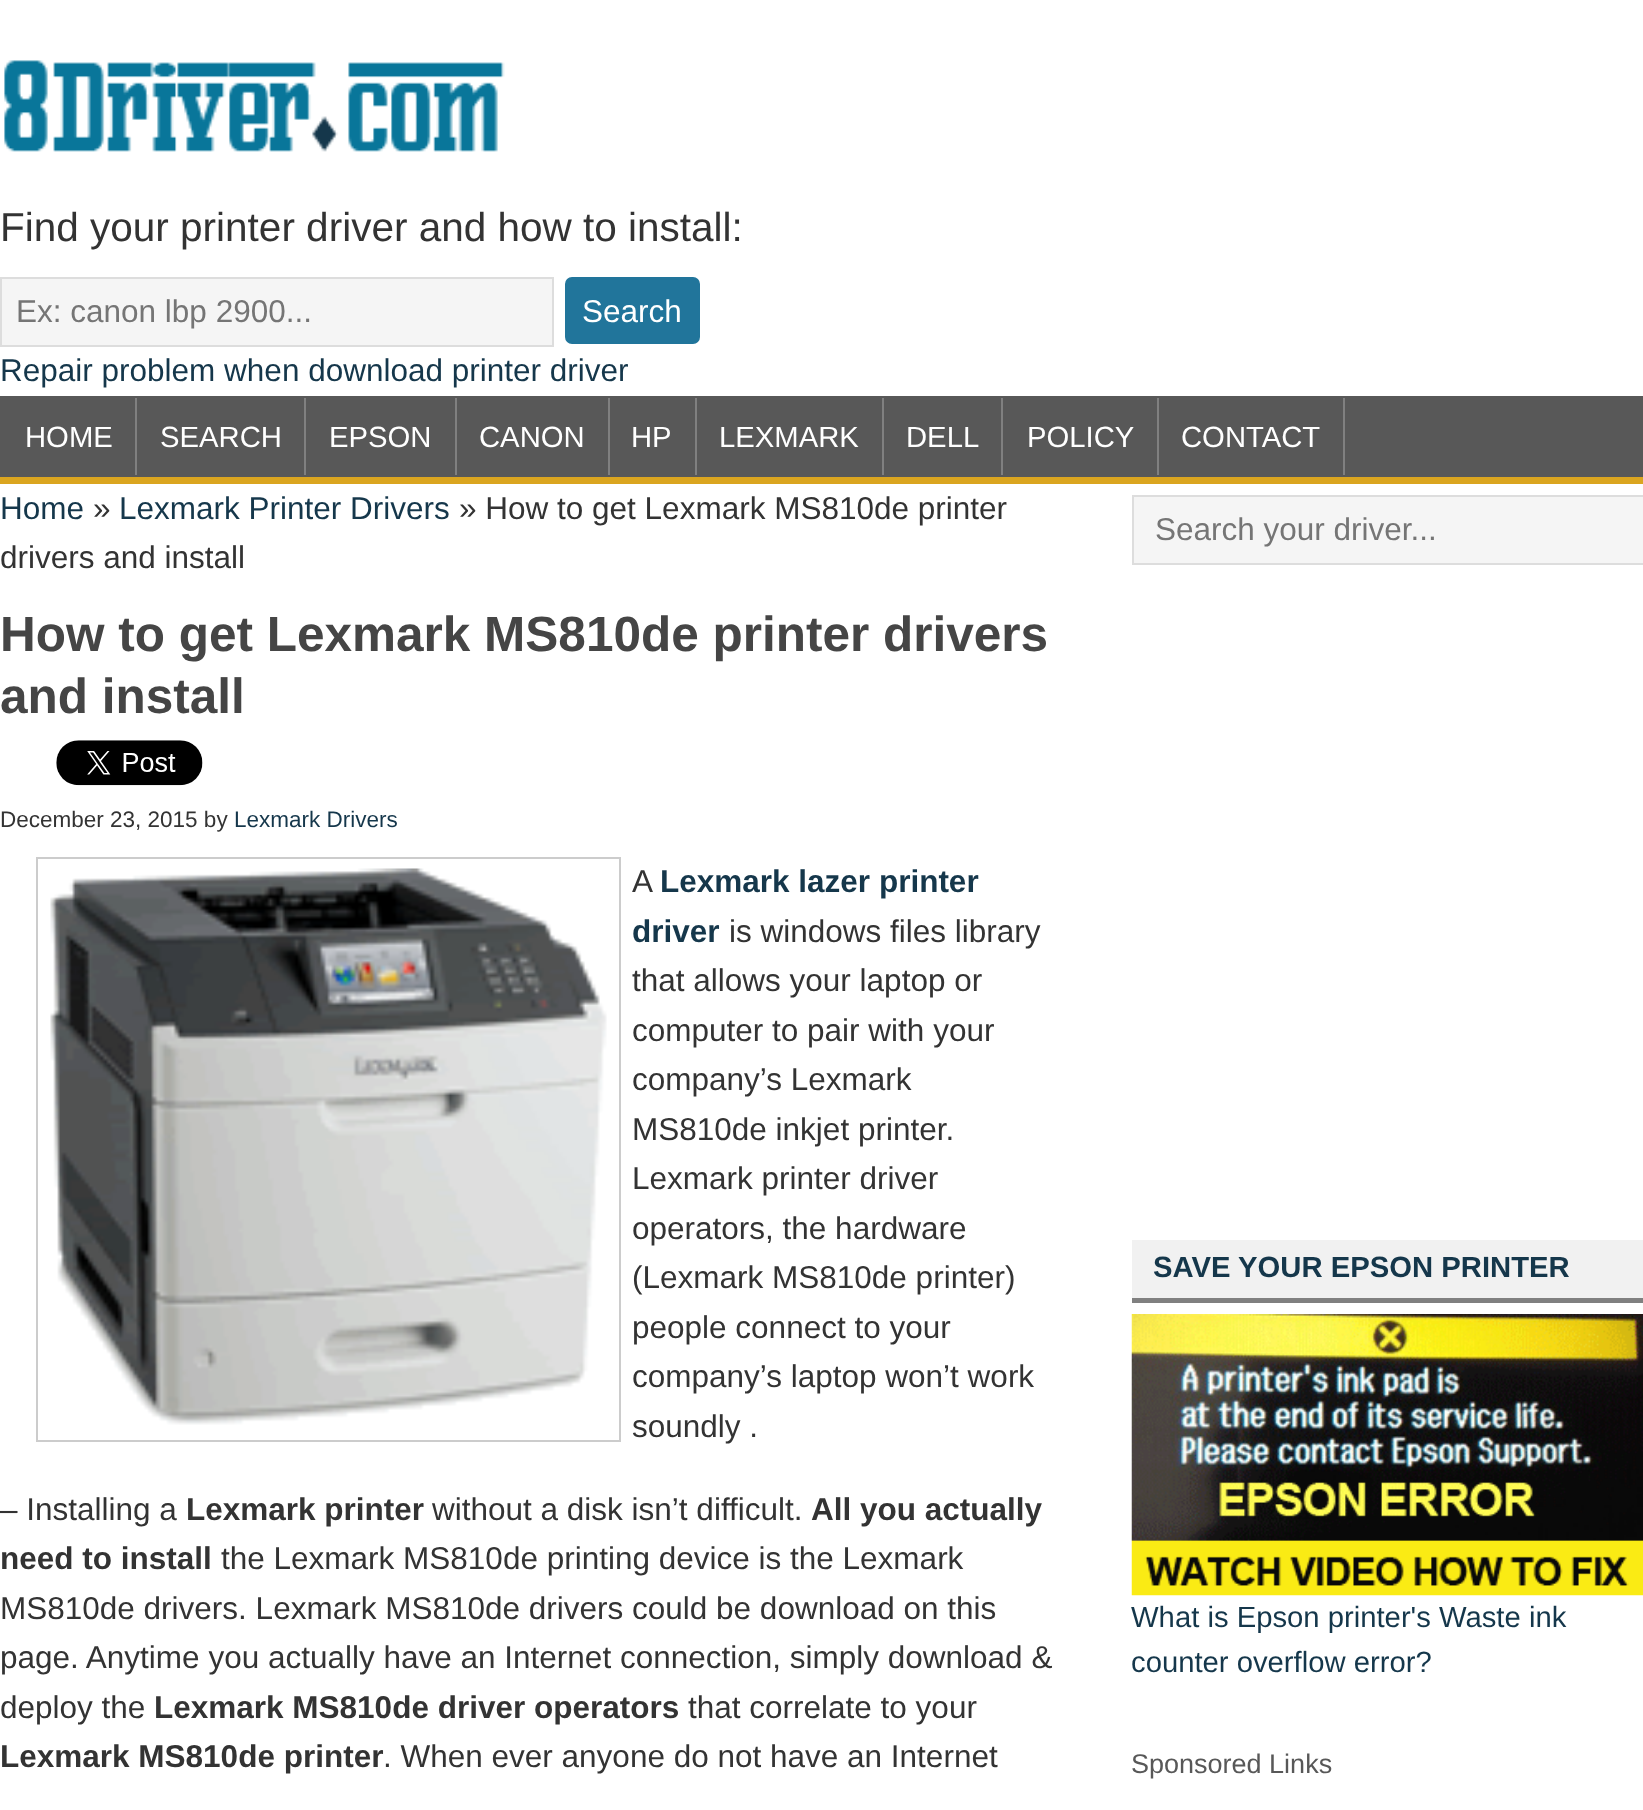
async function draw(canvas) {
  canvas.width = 1643;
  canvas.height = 1810;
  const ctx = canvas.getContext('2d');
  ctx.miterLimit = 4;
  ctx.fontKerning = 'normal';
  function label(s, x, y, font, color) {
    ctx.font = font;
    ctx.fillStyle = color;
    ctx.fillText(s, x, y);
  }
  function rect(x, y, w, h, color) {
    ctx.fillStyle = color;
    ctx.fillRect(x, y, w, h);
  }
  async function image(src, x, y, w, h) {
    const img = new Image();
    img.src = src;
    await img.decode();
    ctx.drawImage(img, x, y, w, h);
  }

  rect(0, 0, 1643, 1810, '#fff');
  await image('assets/img1.png', 4, 60, 501, 92);
  label('Find your printer driver and how to install:', 0, 241, '40.5px Liberation Sans', '#333');
  ctx.fillStyle = '#f5f5f5';
  ctx.beginPath();
  ctx.rect(1, 278, 552, 68);
  ctx.fill();
  ctx.strokeStyle = '#ddd';
  ctx.lineWidth = 2;
  ctx.stroke();
  label('Ex: canon lbp 2900...', 16, 322, '31.5px Liberation Sans', '#757575');
  ctx.fillStyle = '#21759b';
  ctx.beginPath();
  ctx.roundRect(566, 278, 133, 65, 6);
  ctx.fill();
  ctx.strokeStyle = '#21759b';
  ctx.stroke();
  label('Search', 582, 322, '31.5px Liberation Sans', '#fff');
  label('Repair problem when download printer driver', 0, 381, '31.5px Liberation Sans', '#15374b');
  rect(0, 396, 1643, 81, '#585858');
  rect(0, 477, 1643, 7, '#daa520');
  rect(135, 398, 2, 77, '#808080');
  label('HOME', 25, 447, '29.25px Liberation Sans', '#fff');
  rect(304, 398, 2, 77, '#808080');
  label('SEARCH', 160, 447, '29.25px Liberation Sans', '#fff');
  rect(455, 398, 2, 77, '#808080');
  label('EPSON', 329, 447, '29.25px Liberation Sans', '#fff');
  rect(608, 398, 2, 77, '#808080');
  label('CANON', 479, 447, '29.25px Liberation Sans', '#fff');
  rect(695, 398, 2, 77, '#808080');
  label('HP', 631, 447, '29.25px Liberation Sans', '#fff');
  rect(882, 398, 2, 77, '#808080');
  label('LEXMARK', 719, 447, '29.25px Liberation Sans', '#fff');
  rect(1001, 398, 2, 77, '#808080');
  label('DELL', 906, 447, '29.25px Liberation Sans', '#fff');
  rect(1157, 398, 2, 77, '#808080');
  label('POLICY', 1027, 447, '29.25px Liberation Sans', '#fff');
  rect(1343, 398, 2, 77, '#808080');
  label('CONTACT', 1181, 447, '29.25px Liberation Sans', '#fff');
  label('Home', 0, 519, '31.5px Liberation Sans', '#15374b');
  label('»', 93, 519, '31.5px Liberation Sans', '#333');
  label('Lexmark Printer Drivers', 119, 519, '31.5px Liberation Sans', '#15374b');
  label('» How to get Lexmark MS810de printer', 459, 519, '31.5px Liberation Sans', '#333');
  label('drivers and install', 0, 568, '31.5px Liberation Sans', '#333');
  label('How to get Lexmark MS810de printer drivers', 0, 651, 'bold 49.5px Liberation Sans', '#454545');
  label('and install', 0, 713, 'bold 49.5px Liberation Sans', '#454545');
  await image('assets/img2.png', 56, 740, 147, 46);
  label('December 23, 2015 by', 0, 827, '22.5px Liberation Sans', '#333');
  label('Lexmark Drivers', 234, 827, '22.5px Liberation Sans', '#15374b');
  ctx.strokeStyle = '#ccc';
  ctx.strokeRect(37, 858, 583, 583);
  await image('assets/img3.png', 50, 868, 557, 557);
  label('A', 632, 892, '31.5px Liberation Sans', '#333');
  label('Lexmark lazer printer', 660, 892, 'bold 31.5px Liberation Sans', '#15374b');
  label('driver', 632, 942, 'bold 31.5px Liberation Sans', '#15374b');
  label('is windows files library', 729, 942, '31.5px Liberation Sans', '#333');
  label('that allows your laptop or', 632, 991, '31.5px Liberation Sans', '#333');
  label('computer to pair with your', 632, 1041, '31.5px Liberation Sans', '#333');
  label('company’s Lexmark', 632, 1090, '31.5px Liberation Sans', '#333');
  label('MS810de inkjet printer.', 632, 1140, '31.5px Liberation Sans', '#333');
  label('Lexmark printer driver', 632, 1189, '31.5px Liberation Sans', '#333');
  label('operators, the hardware', 632, 1239, '31.5px Liberation Sans', '#333');
  label('(Lexmark MS810de printer)', 632, 1288, '31.5px Liberation Sans', '#333');
  label('people connect to your', 632, 1338, '31.5px Liberation Sans', '#333');
  label('company’s laptop won’t work', 632, 1387, '31.5px Liberation Sans', '#333');
  label('soundly .', 632, 1437, '31.5px Liberation Sans', '#333');
  label('– Installing a', 0, 1520, '31.5px Liberation Sans', '#333');
  label('Lexmark printer', 186, 1520, 'bold 31.5px Liberation Sans', '#333');
  label('without a disk isn’t difficult.', 432, 1520, '31.5px Liberation Sans', '#333');
  label('All you actually', 811, 1520, 'bold 31.5px Liberation Sans', '#333');
  label('need to install', 0, 1569, 'bold 31.5px Liberation Sans', '#333');
  label('the Lexmark MS810de printing device is the Lexmark', 221, 1569, '31.5px Liberation Sans', '#333');
  label('MS810de drivers. Lexmark MS810de drivers could be download on this', 0, 1619, '31.5px Liberation Sans', '#333');
  label('page. Anytime you actually have an Internet connection, simply download &', 0, 1668, '31.5px Liberation Sans', '#333');
  label('deploy the', 0, 1718, '31.5px Liberation Sans', '#333');
  label('Lexmark MS810de driver operators', 154, 1718, 'bold 31.5px Liberation Sans', '#333');
  label('that correlate to your', 688, 1718, '31.5px Liberation Sans', '#333');
  label('Lexmark MS810de printer', 0, 1767, 'bold 31.5px Liberation Sans', '#333');
  label('. When ever anyone do not have an Internet', 383, 1767, '31.5px Liberation Sans', '#333');
  ctx.fillStyle = '#f5f5f5';
  ctx.beginPath();
  ctx.rect(1133, 496, 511, 68);
  ctx.fill();
  ctx.strokeStyle = '#ddd';
  ctx.stroke();
  label('Search your driver...', 1155, 540, '31.5px Liberation Sans', '#757575');
  rect(1132, 1240, 511, 58, '#f1f1f1');
  rect(1132, 1298, 511, 5, '#808080');
  label('SAVE YOUR EPSON PRINTER', 1153, 1277, 'bold 29.25px Liberation Sans', '#15374b');
  await image('assets/img4.png', 1131, 1314, 512, 282);
  label('What is Epson printer\'s Waste ink', 1131, 1627, '29.25px Liberation Sans', '#15374b');
  label('counter overflow error?', 1131, 1672, '29.25px Liberation Sans', '#15374b');
  label('Sponsored Links', 1131, 1773, '27px Liberation Sans', '#585858');
}

draw(document.querySelector('canvas'));
